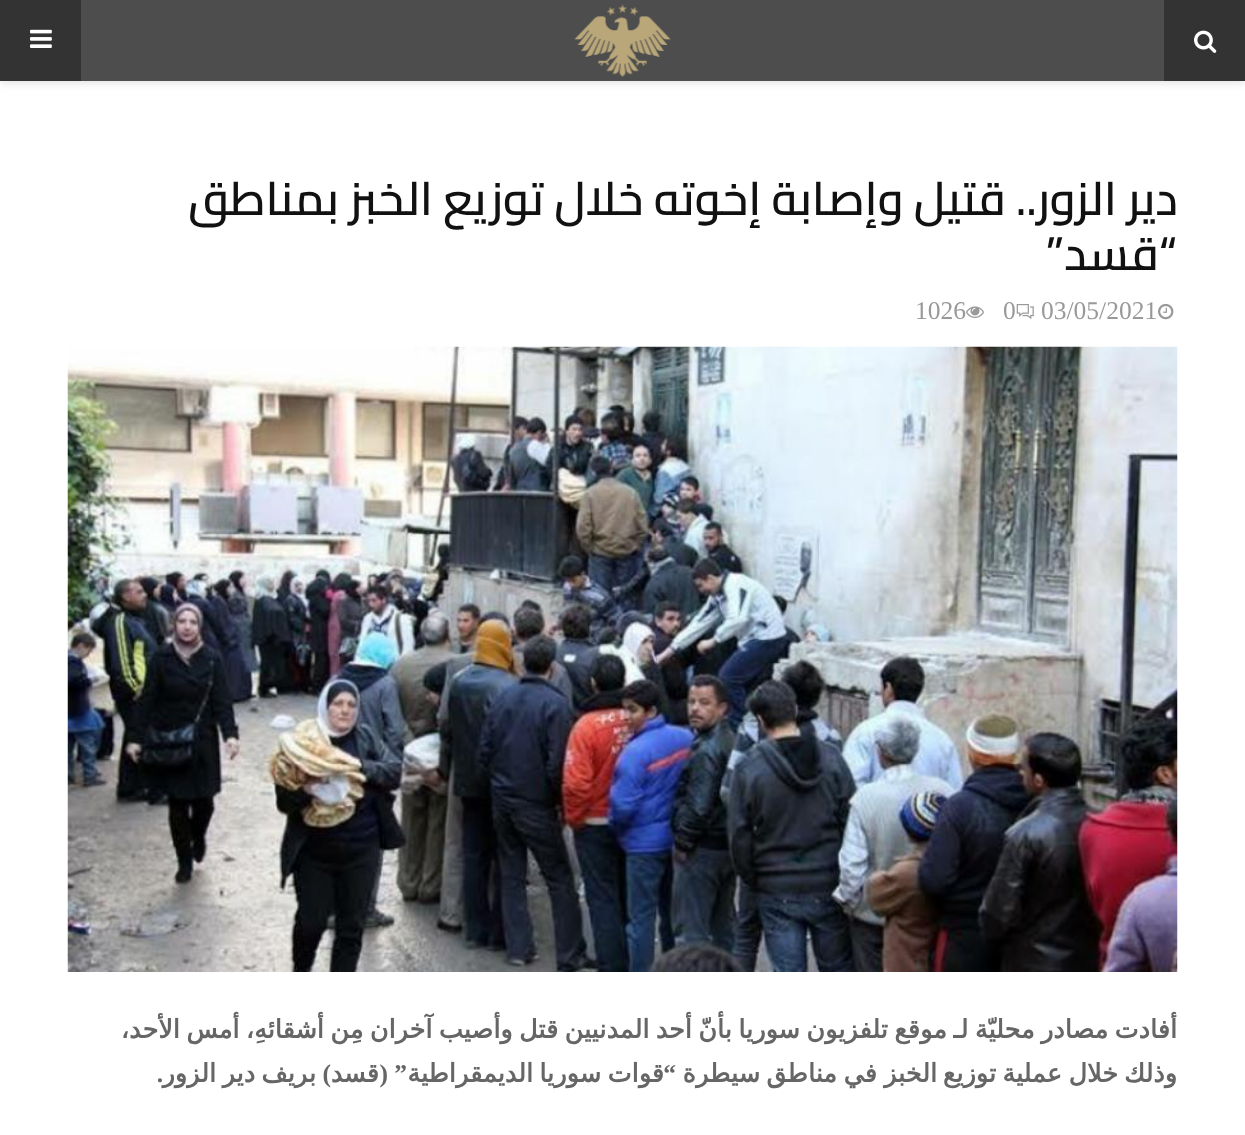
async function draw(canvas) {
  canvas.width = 1245;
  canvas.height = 1135;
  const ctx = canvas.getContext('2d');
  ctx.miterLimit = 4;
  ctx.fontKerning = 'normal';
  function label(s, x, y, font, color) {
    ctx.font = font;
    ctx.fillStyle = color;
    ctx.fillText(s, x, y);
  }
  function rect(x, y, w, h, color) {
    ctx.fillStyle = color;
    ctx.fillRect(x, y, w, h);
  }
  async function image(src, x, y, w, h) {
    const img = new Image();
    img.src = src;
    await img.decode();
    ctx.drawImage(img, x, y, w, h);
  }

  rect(0, 0, 1245, 1135, '#fff');
  ctx.fillStyle = '#bebebe75';
  ctx.filter = 'blur(4px)';
  ctx.beginPath();
  ctx.rect(0, 2, 1245, 81);
  ctx.fill();
  ctx.filter = 'none';
  rect(81, 0, 1083, 81, '#4d4d4d');
  rect(1164, 0, 81, 81, '#333');
  await image('assets/img1.png', 1194, 30, 23, 23);
  await image('assets/img2.png', 574, 4, 97, 73);
  rect(0, 0, 81, 81, '#333');
  await image('assets/img3.png', 30, 29, 22, 19);
  ctx.direction = 'rtl';
  label('دير الزور.. قتيل وإصابة إخوته خلال توزيع الخبز بمناطق', 1178, 215, '600 46.5px Cairo', '#111');
  label('“قسد”', 1177, 270, '600 46.5px Cairo', '#111');
  await image('assets/img4.png', 1158, 303, 16, 17);
  ctx.direction = 'ltr';
  label('03/05/2021', 1041, 319, '25.5px Liberation Serif', '#999');
  await image('assets/img5.png', 1016, 304, 18, 16);
  label('0', 1003, 319, '25.5px Liberation Serif', '#999');
  await image('assets/img6.png', 966, 306, 18, 12);
  label('1026', 915, 319, '25.5px Liberation Serif', '#999');
  await image('assets/img7.png', 67, 346, 1111, 626);
  ctx.wordSpacing = '-1.75px';
  ctx.direction = 'rtl';
  label('أفادت مصادر محليّة لـ موقع تلفزيون سوريا بأنّ أحد المدنيين قتل وأصيب آخران مِن أشقائهِ، أمس الأحد،', 1177, 1038, 'bold 25.5px DejaVu Sans', '#666');
  ctx.wordSpacing = '0px';
  label('وذلك', 1177, 1082, 'bold 25.5px DejaVu Sans', '#666');
  label('خلال', 1118, 1082, 'bold 25.5px DejaVu Sans', '#666');
  label('عملية', 1062, 1082, 'bold 25.5px DejaVu Sans', '#666');
  label('توزيع', 996, 1082, 'bold 25.5px DejaVu Sans', '#666');
  label('الخبز', 937, 1082, 'bold 25.5px DejaVu Sans', '#666');
  label('في', 877, 1082, 'bold 25.5px DejaVu Sans', '#666');
  label('مناطق', 837, 1082, 'bold 25.5px DejaVu Sans', '#666');
  label('سيطرة', 760, 1082, 'bold 25.5px DejaVu Sans', '#666');
  label('“', 676, 1082, 'bold 25.5px Liberation Serif', '#666');
  label('قوات', 664, 1082, 'bold 25.5px DejaVu Sans', '#666');
  label('سوريا', 601, 1082, 'bold 25.5px DejaVu Sans', '#666');
  label('الديمقراطية', 533, 1082, 'bold 25.5px DejaVu Sans', '#666');
  label('” (', 407, 1082, 'bold 25.5px Liberation Serif', '#666');
  label('قسد', 379, 1082, 'bold 25.5px DejaVu Sans', '#666');
  label(')', 331, 1082, 'bold 25.5px Liberation Serif', '#666');
  label('بريف', 316, 1082, 'bold 25.5px DejaVu Sans', '#666');
  label('دير', 255, 1082, 'bold 25.5px DejaVu Sans', '#666');
  label('.', 163, 1082, 'bold 25.5px Liberation Serif', '#666');
  label('الزور', 216, 1082, 'bold 25.5px DejaVu Sans', '#666');
}

draw(document.querySelector('canvas'));
